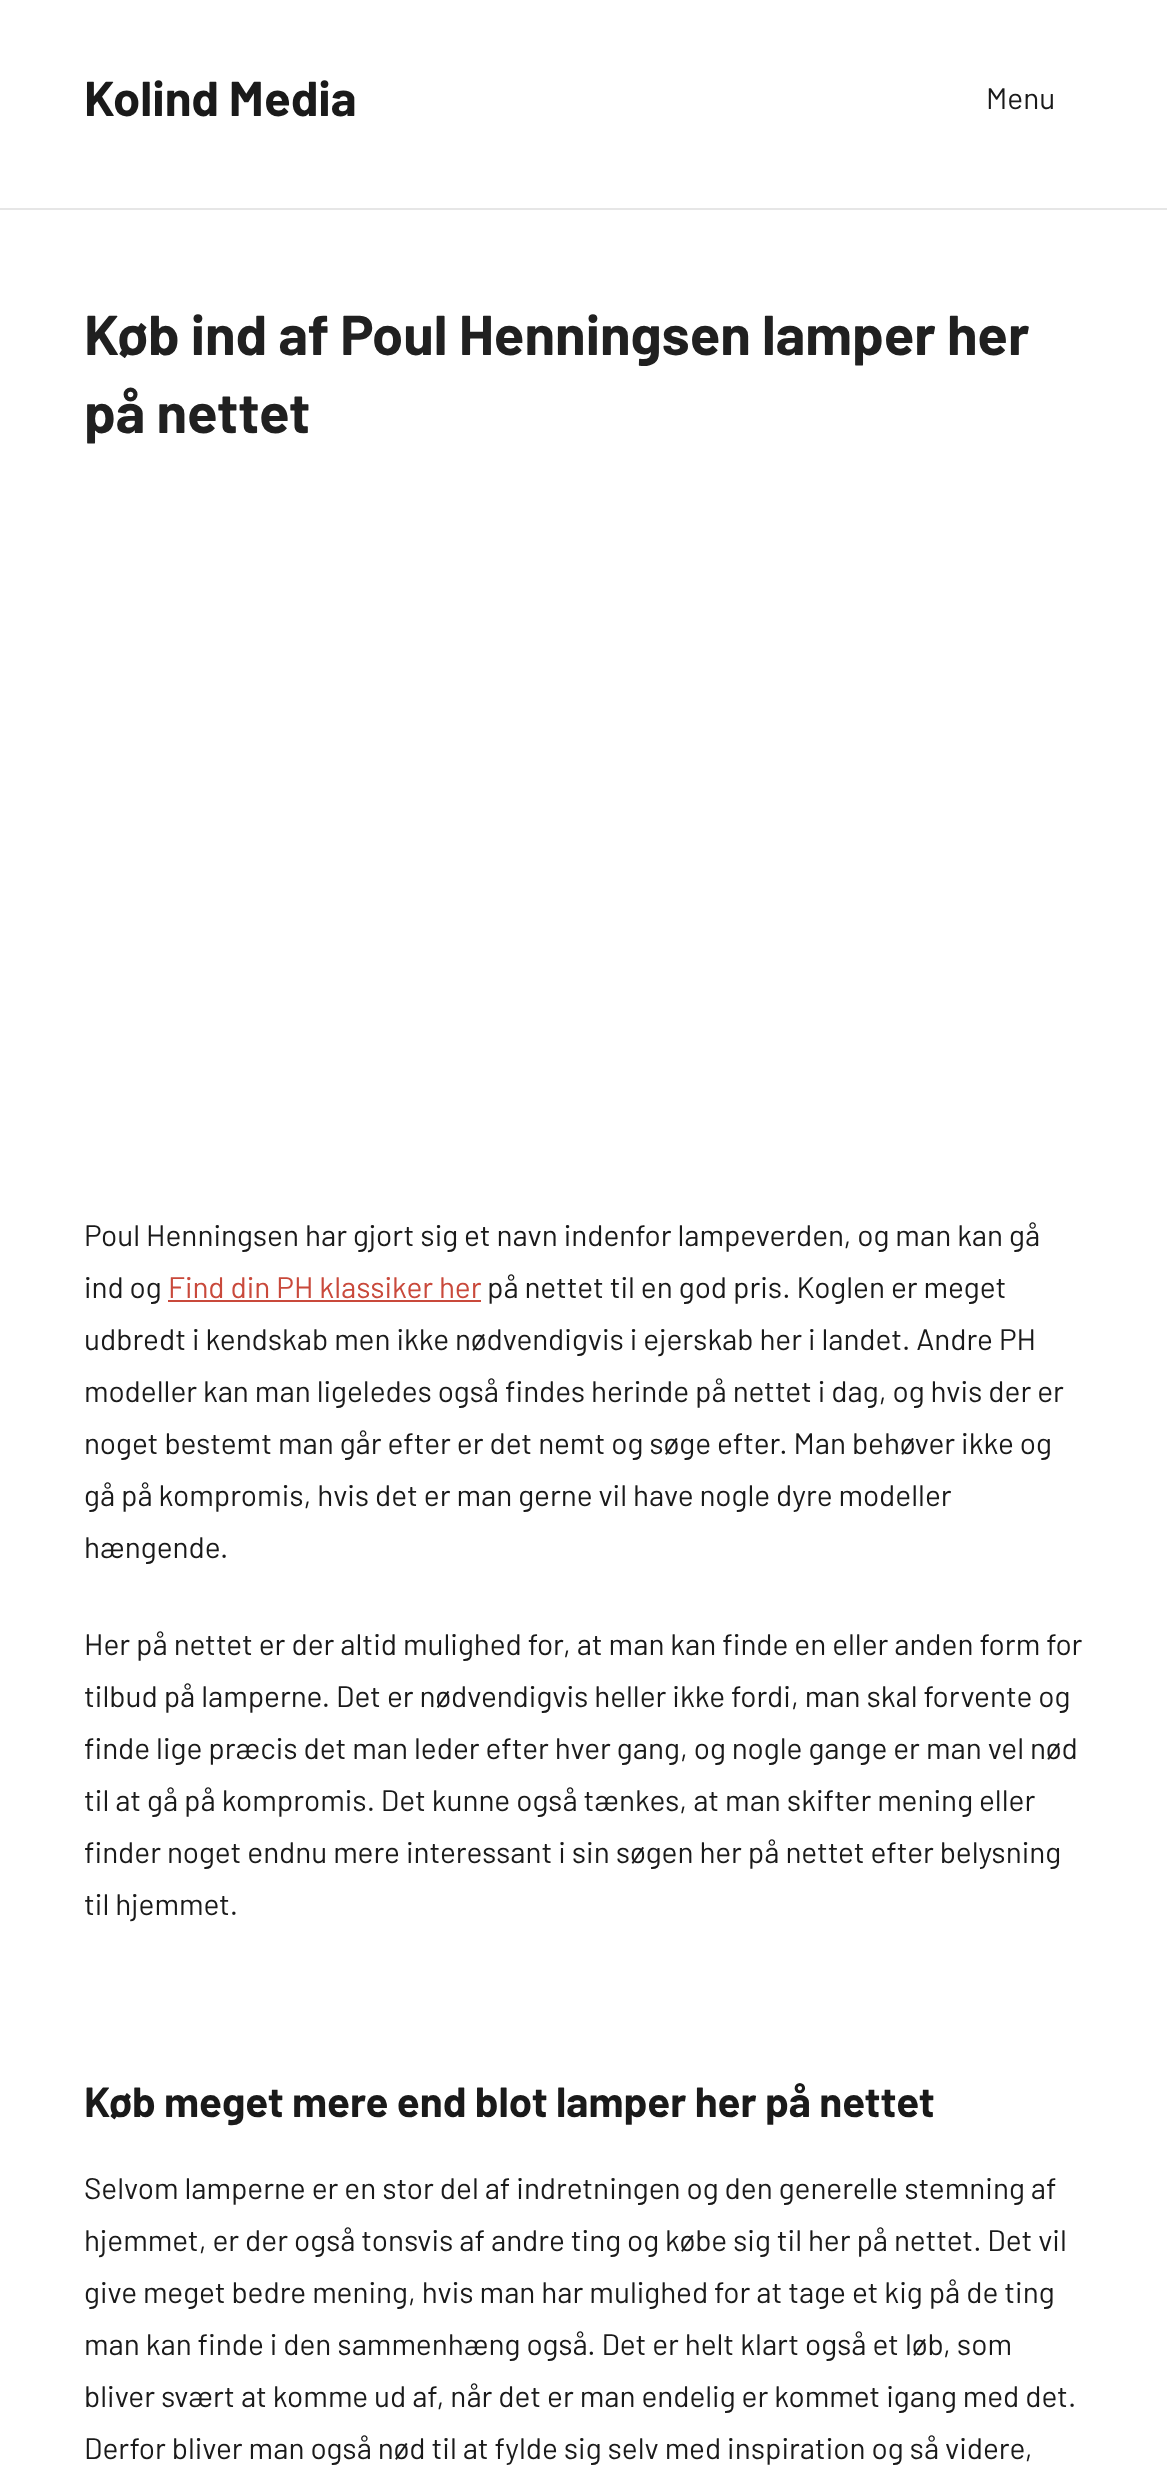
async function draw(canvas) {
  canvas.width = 1167;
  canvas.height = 2468;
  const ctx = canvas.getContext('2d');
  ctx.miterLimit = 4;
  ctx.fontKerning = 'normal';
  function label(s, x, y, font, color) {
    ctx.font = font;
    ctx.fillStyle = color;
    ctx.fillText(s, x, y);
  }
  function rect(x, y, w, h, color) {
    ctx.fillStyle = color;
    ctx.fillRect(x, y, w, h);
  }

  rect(0, 0, 1167, 2468, '#fff');
  rect(0, 208, 1167, 2, '#e6e6e6');
  label('Kolind Media', 84, 116, 'bold 49px Barlow', '#1a1a1a');
  label('Menu', 986, 109, '29.75px Barlow', '#1a1a1a');
  label('Køb ind af Poul Henningsen lamper her', 84, 355, 'bold 56px Barlow', '#202020');
  label('på nettet', 84, 433, 'bold 56px Barlow', '#202020');
  label('Poul Henningsen har gjort sig et navn indenfor lampeverden, og man kan gå', 84, 1246, '29.75px Barlow', '#1a1a1a');
  label('ind og', 84, 1298, '29.75px Barlow', '#1a1a1a');
  label('Find din PH klassiker her', 168, 1298, '29.75px Barlow', '#c9493b');
  rect(168, 1300, 313, 2, '#c9493b');
  label('på nettet til en god pris. Koglen er meget', 487, 1298, '29.75px Barlow', '#1a1a1a');
  label('udbredt i kendskab men ikke nødvendigvis i ejerskab her i landet. Andre PH', 84, 1350, '29.75px Barlow', '#1a1a1a');
  label('modeller kan man ligeledes også findes herinde på nettet i dag, og hvis der er', 84, 1402, '29.75px Barlow', '#1a1a1a');
  label('noget bestemt man går efter er det nemt og søge efter. Man behøver ikke og', 84, 1454, '29.75px Barlow', '#1a1a1a');
  label('gå på kompromis, hvis det er man gerne vil have nogle dyre modeller', 84, 1506, '29.75px Barlow', '#1a1a1a');
  label('hængende.', 84, 1558, '29.75px Barlow', '#1a1a1a');
  label('Her på nettet er der altid mulighed for, at man kan finde en eller anden form for', 84, 1655, '29.75px Barlow', '#1a1a1a');
  label('tilbud på lamperne. Det er nødvendigvis heller ikke fordi, man skal forvente og', 84, 1707, '29.75px Barlow', '#1a1a1a');
  label('finde lige præcis det man leder efter hver gang, og nogle gange er man vel nød', 84, 1759, '29.75px Barlow', '#1a1a1a');
  label('til at gå på kompromis. Det kunne også tænkes, at man skifter mening eller', 84, 1811, '29.75px Barlow', '#1a1a1a');
  label('finder noget endnu mere interessant i sin søgen her på nettet efter belysning', 84, 1863, '29.75px Barlow', '#1a1a1a');
  label('til hjemmet.', 84, 1915, '29.75px Barlow', '#1a1a1a');
  label('Køb meget mere end blot lamper her på nettet', 84, 2117, 'bold 42px Barlow', '#1a1a1a');
  label('Selvom lamperne er en stor del af indretningen og den generelle stemning af', 84, 2199, '29.75px Barlow', '#1a1a1a');
  label('hjemmet, er der også tonsvis af andre ting og købe sig til her på nettet. Det vil', 84, 2251, '29.75px Barlow', '#1a1a1a');
  label('give meget bedre mening, hvis man har mulighed for at tage et kig på de ting', 84, 2303, '29.75px Barlow', '#1a1a1a');
  label('man kan finde i den sammenhæng også. Det er helt klart også et løb, som', 84, 2355, '29.75px Barlow', '#1a1a1a');
  label('bliver svært at komme ud af, når det er man endelig er kommet igang med det.', 84, 2407, '29.75px Barlow', '#1a1a1a');
  label('Derfor bliver man også nød til at fylde sig selv med inspiration og så videre,', 84, 2459, '29.75px Barlow', '#1a1a1a');
}

draw(document.querySelector('canvas'));
